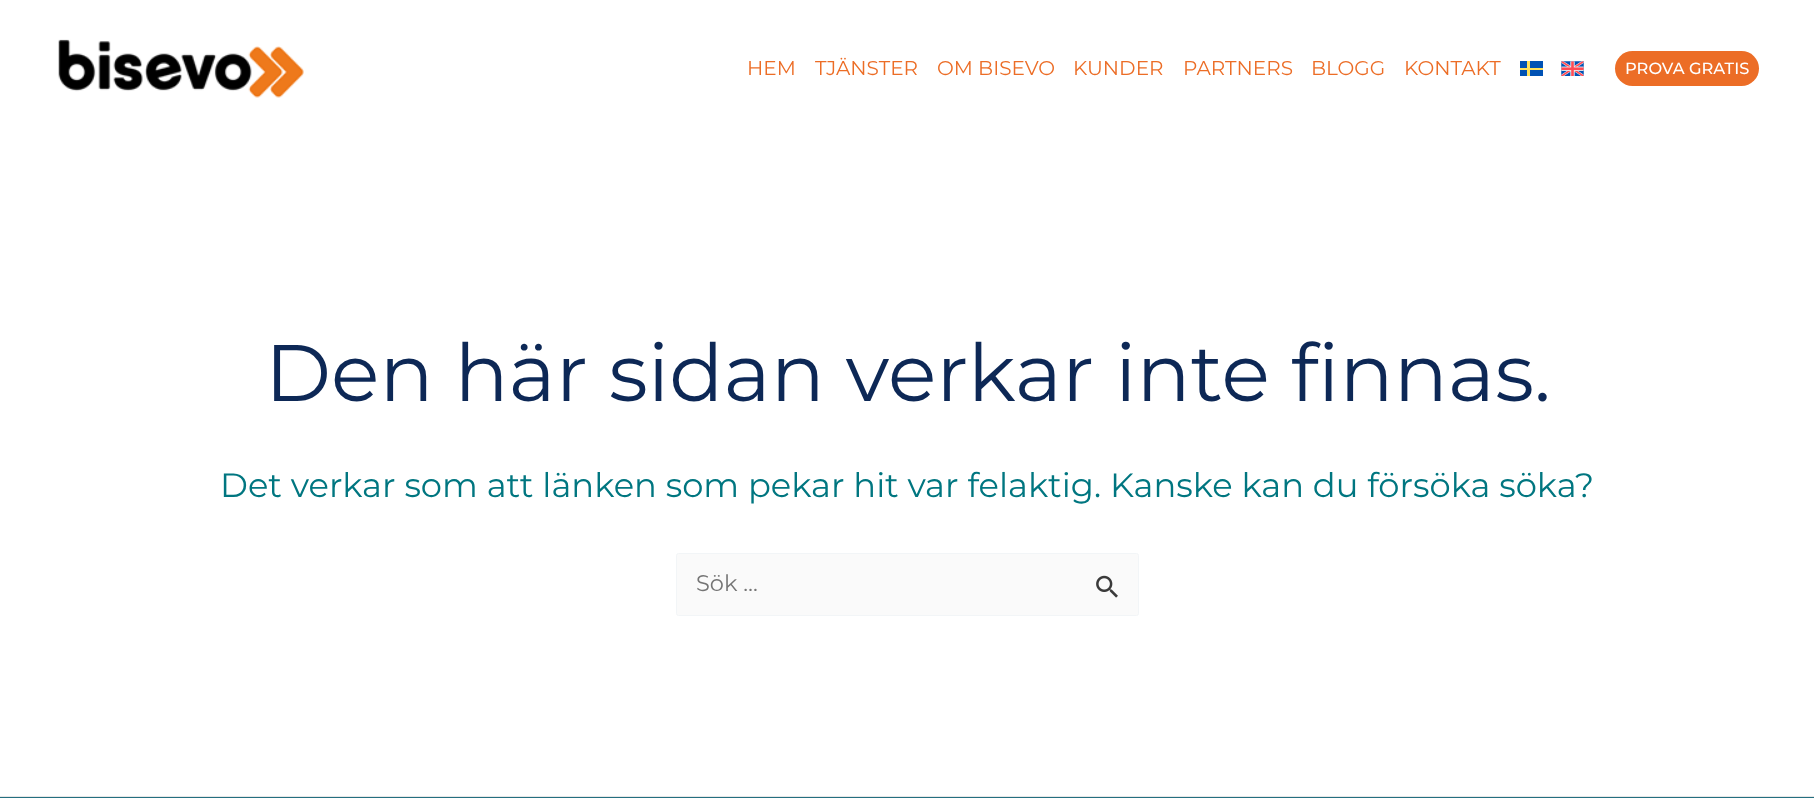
async function draw(canvas) {
  canvas.width = 1814;
  canvas.height = 798;
  const ctx = canvas.getContext('2d');
  ctx.miterLimit = 4;
  ctx.fontKerning = 'normal';
  function label(s, x, y, font, color) {
    ctx.font = font;
    ctx.fillStyle = color;
    ctx.fillText(s, x, y);
  }
  function rect(x, y, w, h, color) {
    ctx.fillStyle = color;
    ctx.fillRect(x, y, w, h);
  }
  function roundedRect(x, y, w, h, r, color) {
    ctx.fillStyle = color;
    ctx.beginPath();
    ctx.roundRect(x, y, w, h, r);
    ctx.fill();
  }
  async function image(src, x, y, w, h) {
    const img = new Image();
    img.src = src;
    await img.decode();
    ctx.drawImage(img, x, y, w, h);
  }

  rect(0, 0, 1814, 798, '#fff');
  await image('assets/img1.png', 58, 39, 246, 59);
  label('HEM', 747, 75, '20px Montserrat', '#ec6d26');
  label('TJÄNSTER', 815, 75, '20px Montserrat', '#ec6d26');
  label('OM BISEVO', 937, 75, '20px Montserrat', '#ec6d26');
  label('KUNDER', 1073, 75, '20px Montserrat', '#ec6d26');
  label('PARTNERS', 1183, 75, '20px Montserrat', '#ec6d26');
  label('BLOGG', 1311, 75, '20px Montserrat', '#ec6d26');
  label('KONTAKT', 1404, 75, '20px Montserrat', '#ec6d26');
  rect(1520, 61, 23, 15, '#0052b4');
  rect(1527, 61, 3, 15, '#ffe15a');
  rect(1520, 68, 23, 2, '#ffe15a');
  await image('assets/img2.png', 1561, 61, 23, 15);
  roundedRect(1615, 51, 144, 35, 17.5, '#ec6d26');
  label('PROVA GRATIS', 1625, 74, '500 16.25px Montserrat', '#fff');
  label('Den här sidan verkar inte finnas.', 265, 401, '80px Montserrat', '#0d2856');
  label('Det verkar som att länken som pekar hit var felaktig. Kanske kan du försöka söka?', 220, 497, '33.75px Montserrat', '#007680');
  ctx.fillStyle = '#fafafa';
  ctx.beginPath();
  ctx.roundRect(676.5, 553.5, 462, 62, 2);
  ctx.fill();
  ctx.strokeStyle = '#f2f5f7';
  ctx.stroke();
  label('Sök …', 696, 591, '22.5px Montserrat', '#757575');
  await image('assets/img3.png', 1096, 575, 22, 23);
  rect(0, 797, 1814, 1, '#246f80');
  rect(0, 796, 1814, 1, '#e6e6e6');
}

draw(document.querySelector('canvas'));
